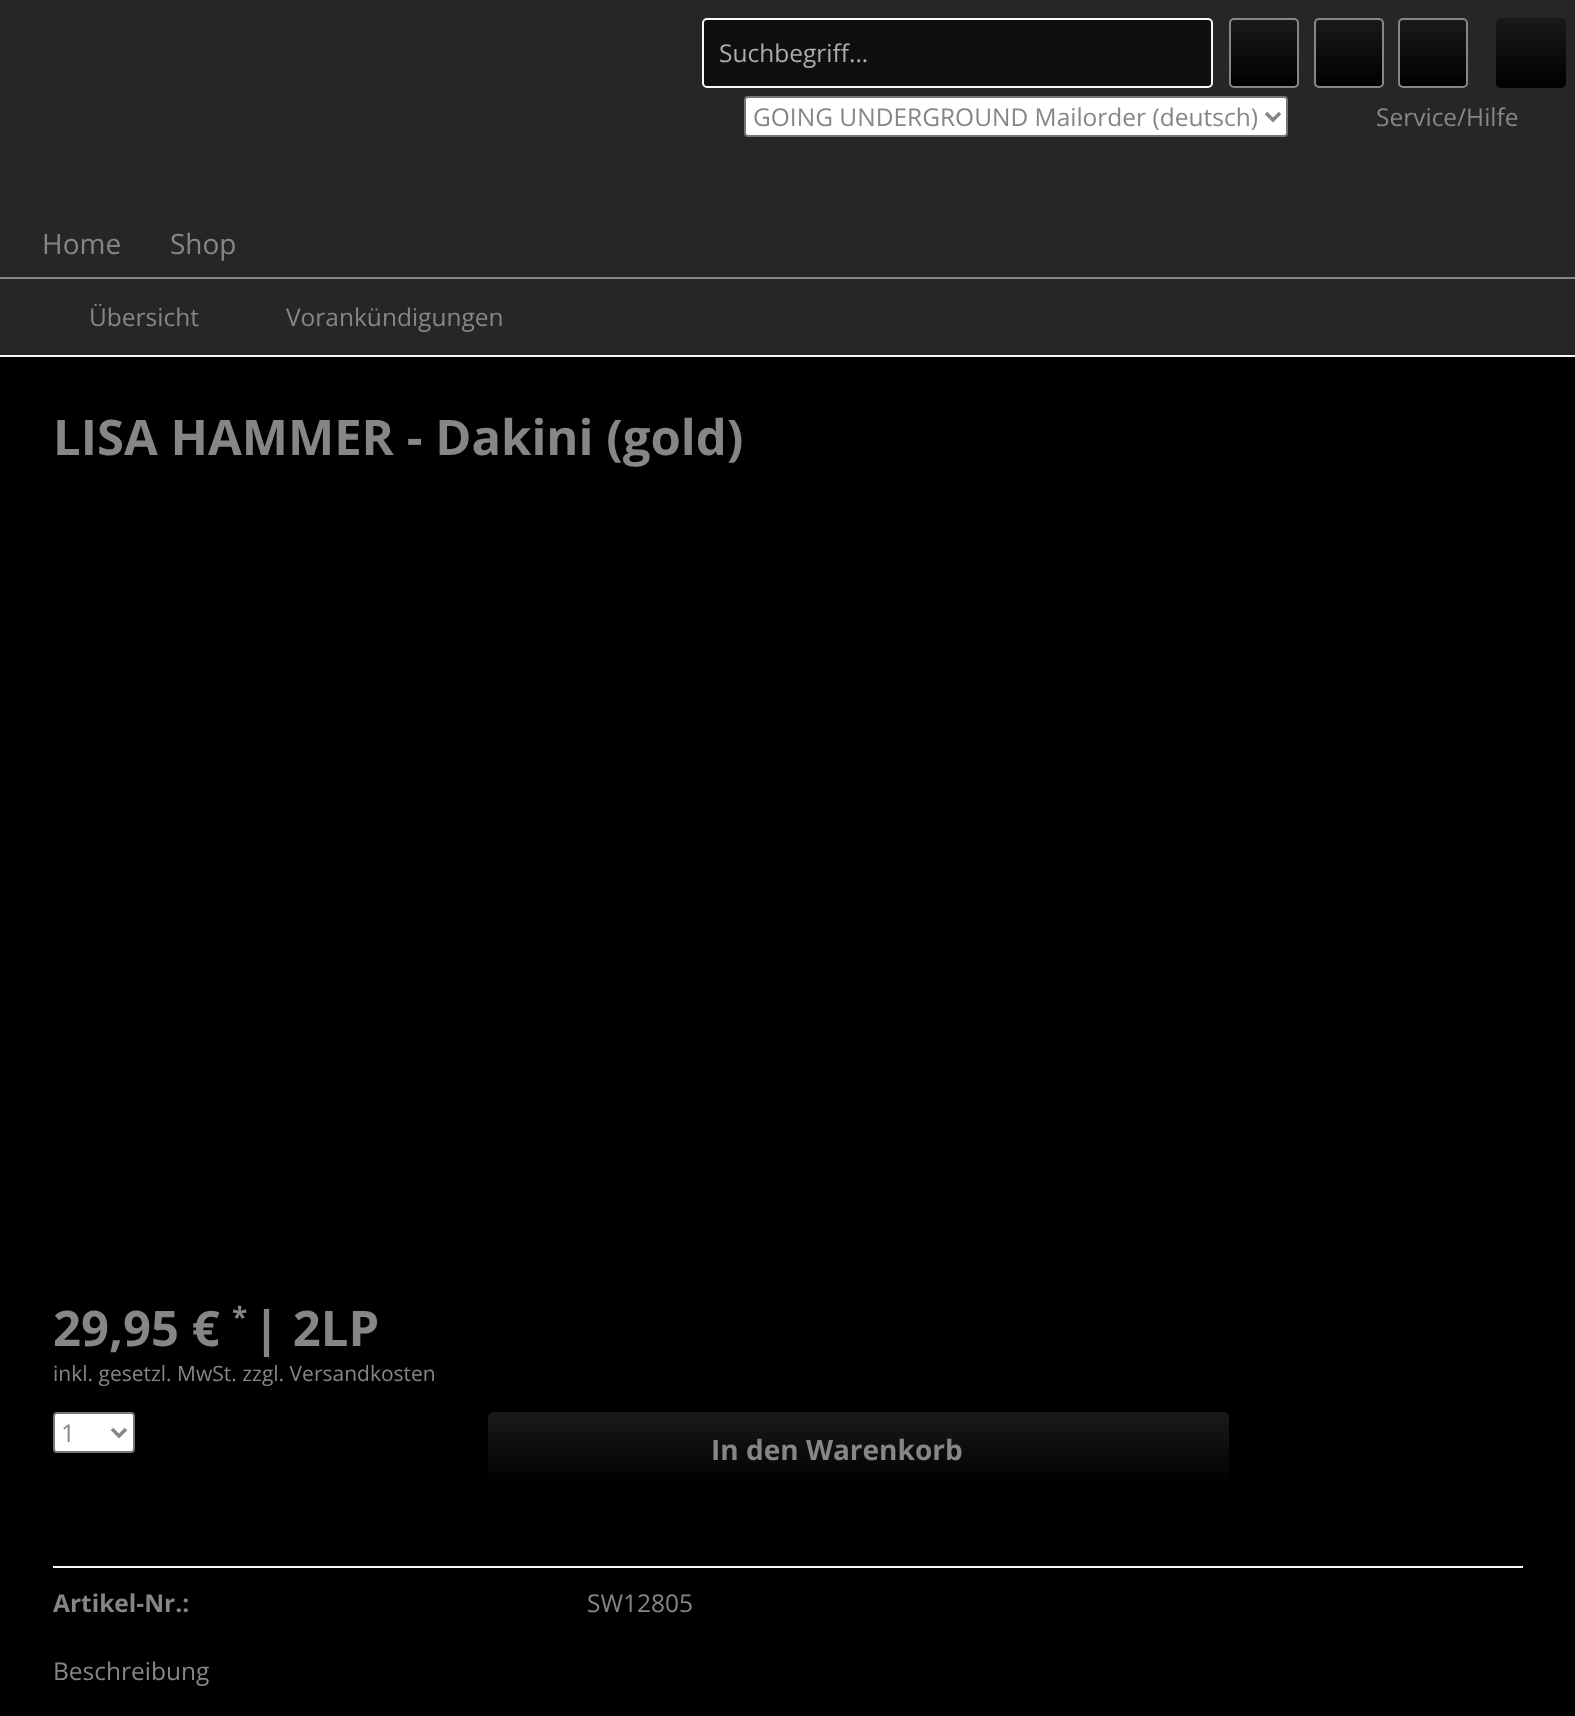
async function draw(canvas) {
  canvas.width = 1575;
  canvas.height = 1716;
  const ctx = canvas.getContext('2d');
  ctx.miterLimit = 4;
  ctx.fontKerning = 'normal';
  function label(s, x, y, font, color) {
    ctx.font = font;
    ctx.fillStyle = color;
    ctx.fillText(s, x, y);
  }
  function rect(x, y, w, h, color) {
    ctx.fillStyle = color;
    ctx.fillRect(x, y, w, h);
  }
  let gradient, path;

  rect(0, 0, 1575, 1716, '#fff');
  rect(0, 0, 1575, 210, '#262626');
  ctx.fillStyle = '#0f0f0f';
  ctx.beginPath();
  ctx.roundRect(703, 19, 509, 68, 4);
  ctx.fill();
  ctx.strokeStyle = '#f9f9f9';
  ctx.lineWidth = 2;
  ctx.stroke();
  label('Suchbegriff...', 719, 62, '24.5px Open Sans', '#acacac');
  gradient = ctx.createLinearGradient(1264, 19, 1264, 86);
  gradient.addColorStop(0, '#1a1a1a');
  gradient.addColorStop(1, '#000');
  ctx.fillStyle = gradient;
  ctx.beginPath();
  ctx.roundRect(1230, 19, 67, 67, 4);
  ctx.fill();
  ctx.beginPath();
  ctx.roundRect(1230, 19, 68, 68, 4);
  ctx.strokeStyle = '#868686';
  ctx.stroke();
  gradient = ctx.createLinearGradient(1349, 19, 1349, 86);
  gradient.addColorStop(0, '#1a1a1a');
  gradient.addColorStop(1, '#000');
  ctx.fillStyle = gradient;
  ctx.beginPath();
  ctx.roundRect(1316, 19, 67, 67, 4);
  ctx.fill();
  ctx.beginPath();
  ctx.roundRect(1315, 19, 68, 68, 4);
  ctx.stroke();
  gradient = ctx.createLinearGradient(1433, 19, 1433, 86);
  gradient.addColorStop(0, '#1a1a1a');
  gradient.addColorStop(1, '#000');
  ctx.fillStyle = gradient;
  ctx.beginPath();
  ctx.roundRect(1400, 19, 67, 67, 4);
  ctx.fill();
  ctx.beginPath();
  ctx.roundRect(1399, 19, 68, 68, 4);
  ctx.stroke();
  gradient = ctx.createLinearGradient(1531, 17, 1531, 88);
  gradient.addColorStop(0, '#1a1a1a');
  gradient.addColorStop(1, '#000');
  ctx.fillStyle = gradient;
  ctx.beginPath();
  ctx.roundRect(1496, 18, 70, 70, 5);
  ctx.fill();
  ctx.fillStyle = '#fff';
  ctx.beginPath();
  ctx.roundRect(745, 97, 542, 39, 3);
  ctx.fill();
  ctx.strokeStyle = '#767676';
  ctx.stroke();
  path = new Path2D('M1266 113L1273 120L1280 113');
  ctx.strokeStyle = '#868686';
  ctx.lineWidth = 3.5;
  ctx.stroke(path);
  label('GOING UNDERGROUND Mailorder (deutsch)', 753, 126, '24.5px Open Sans', '#868686');
  label('Service/Hilfe', 1376, 126, '24.5px Open Sans', '#868686');
  rect(0, 210, 1575, 67, '#000000d9');
  rect(0, 277, 1575, 2, '#868686');
  label('Home', 42, 254, '28px Open Sans', '#868686');
  label('Shop', 170, 254, '28px Open Sans', '#868686');
  rect(0, 279, 1575, 76, '#262626');
  rect(0, 355, 1575, 2, '#f9f9f9');
  label('Übersicht', 89, 326, '24.5px Open Sans', '#868686');
  label('Vorankündigungen', 286, 326, '24.5px Open Sans', '#868686');
  rect(0, 357, 1575, 1359, '#000');
  label('LISA HAMMER - Dakini (gold)', 53, 455, 'bold 49px Open Sans', '#868686');
  label('29,95 €', 53, 1346, 'bold 49px Open Sans', '#868686');
  label('*', 232, 1327, 'bold 28px Open Sans', '#868686');
  label('| 2LP', 253, 1346, 'bold 49px Open Sans', '#868686');
  label('inkl. gesetzl. MwSt. zzgl. Versandkosten', 53, 1381, '21px Open Sans', '#868686');
  ctx.fillStyle = '#fff';
  ctx.beginPath();
  ctx.roundRect(54, 1413, 80, 39, 3);
  ctx.fill();
  ctx.strokeStyle = '#767676';
  ctx.lineWidth = 2;
  ctx.stroke();
  path = new Path2D('M112 1429L119 1436L126 1429');
  ctx.strokeStyle = '#868686';
  ctx.lineWidth = 3.5;
  ctx.stroke(path);
  label('1', 61, 1442, '24.5px Open Sans', '#868686');
  gradient = ctx.createLinearGradient(858, 1412, 858, 1486);
  gradient.addColorStop(0, '#1a1a1a');
  gradient.addColorStop(1, '#000');
  ctx.fillStyle = gradient;
  ctx.beginPath();
  ctx.roundRect(488, 1412, 741, 74, 5);
  ctx.fill();
  label('In den Warenkorb', 711, 1460, 'bold 28px Open Sans', '#868686');
  rect(53, 1566, 1470, 2, '#f9f9f9');
  label('Artikel-Nr.:', 53, 1612, 'bold 24.5px Open Sans', '#868686');
  label('SW12805', 587, 1612, '24.5px Open Sans', '#868686');
  label('Beschreibung', 53, 1680, '24.5px Open Sans', '#868686');
}

draw(document.querySelector('canvas'));
